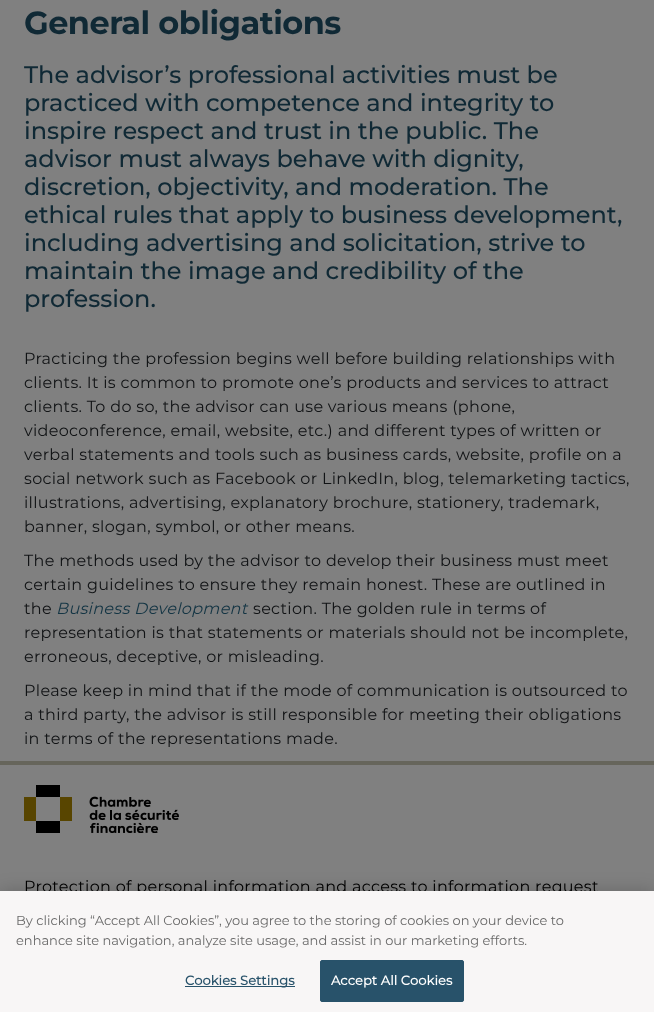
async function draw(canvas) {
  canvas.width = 654;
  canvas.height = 1012;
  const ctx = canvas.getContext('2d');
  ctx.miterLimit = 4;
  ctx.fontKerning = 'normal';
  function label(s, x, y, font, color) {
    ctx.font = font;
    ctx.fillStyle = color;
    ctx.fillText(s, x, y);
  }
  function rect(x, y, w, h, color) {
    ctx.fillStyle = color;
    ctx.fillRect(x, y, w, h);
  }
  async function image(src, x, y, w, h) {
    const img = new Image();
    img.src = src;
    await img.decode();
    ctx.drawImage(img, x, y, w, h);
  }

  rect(0, 0, 654, 1012, '#808080');
  ctx.letterSpacing = '-0.5px';
  label('General obligations', 24, 34, 'bold 32px Montserrat', '#102935');
  ctx.letterSpacing = '0px';
  label('The advisor’s professional activities must be', 24, 83, '500 24px Montserrat', '#102935');
  label('practiced with competence and integrity to', 24, 111, '500 24px Montserrat', '#102935');
  label('inspire respect and trust in the public. The', 24, 139, '500 24px Montserrat', '#102935');
  label('advisor must always behave with dignity,', 24, 167, '500 24px Montserrat', '#102935');
  label('discretion, objectivity, and moderation. The', 24, 195, '500 24px Montserrat', '#102935');
  label('ethical rules that apply to business development,', 24, 223, '500 24px Montserrat', '#102935');
  label('including advertising and solicitation, strive to', 24, 251, '500 24px Montserrat', '#102935');
  label('maintain the image and credibility of the', 24, 279, '500 24px Montserrat', '#102935');
  label('profession.', 24, 307, '500 24px Montserrat', '#102935');
  ctx.letterSpacing = '0.32px';
  label('Practicing the profession begins well before building relationships with', 24, 364, '16px Montserrat', '#111315');
  label('clients. It is common to promote one’s products and services to attract', 24, 388, '16px Montserrat', '#111315');
  label('clients. To do so, the advisor can use various means (phone,', 24, 412, '16px Montserrat', '#111315');
  label('videoconference, email, website, etc.) and different types of written or', 24, 436, '16px Montserrat', '#111315');
  label('verbal statements and tools such as business cards, website, profile on a', 24, 460, '16px Montserrat', '#111315');
  label('social network such as Facebook or LinkedIn, blog, telemarketing tactics,', 24, 484, '16px Montserrat', '#111315');
  label('illustrations, advertising, explanatory brochure, stationery, trademark,', 24, 508, '16px Montserrat', '#111315');
  label('banner, slogan, symbol, or other means.', 24, 532, '16px Montserrat', '#111315');
  label('The methods used by the advisor to develop their business must meet', 24, 566, '16px Montserrat', '#111315');
  label('certain guidelines to ensure they remain honest. These are outlined in', 24, 590, '16px Montserrat', '#111315');
  label('the', 24, 614, '16px Montserrat', '#111315');
  label('Business Development', 56, 614, 'italic 16px Montserrat', '#143544');
  label('section. The golden rule in terms of', 253, 614, '16px Montserrat', '#111315');
  label('representation is that statements or materials should not be incomplete,', 24, 638, '16px Montserrat', '#111315');
  label('erroneous, deceptive, or misleading.', 24, 662, '16px Montserrat', '#111315');
  label('Please keep in mind that if the mode of communication is outsourced to', 24, 696, '16px Montserrat', '#111315');
  label('a third party, the advisor is still responsible for meeting their obligations', 24, 720, '16px Montserrat', '#111315');
  label('in terms of the representations made.', 24, 744, '16px Montserrat', '#111315');
  rect(0, 761, 654, 4, '#66655b');
  await image('assets/img1.png', 24, 785, 155, 48);
  label('Protection of personal information and access to information request', 24, 892, '16px Montserrat', '#000');
  ctx.fillStyle = '#00000033';
  ctx.filter = 'blur(9px)';
  ctx.beginPath();
  ctx.rect(0, 891, 654, 121);
  ctx.fill();
  ctx.filter = 'none';
  rect(0, 891, 654, 121, '#f8f6f6');
  ctx.letterSpacing = '0px';
  label('By clicking “Accept All Cookies”, you agree to the storing of cookies on your device to', 16, 925, '13px Montserrat', '#696969');
  label('enhance site navigation, analyze site usage, and assist in our marketing efforts.', 16, 945, '13px Montserrat', '#696969');
  rect(185, 986, 110, 1, '#28526a');
  ctx.letterSpacing = '0.1px';
  label('Cookies Settings', 185, 985, 'bold 13px "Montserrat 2"', '#28526a');
  ctx.beginPath();
  ctx.roundRect(320.5, 960.5, 143, 41, 1.5);
  ctx.fill();
  ctx.strokeStyle = '#28526a';
  ctx.stroke();
  label('Accept All Cookies', 331, 985, 'bold 13px "Montserrat 2"', '#fff');
}

draw(document.querySelector('canvas'));
